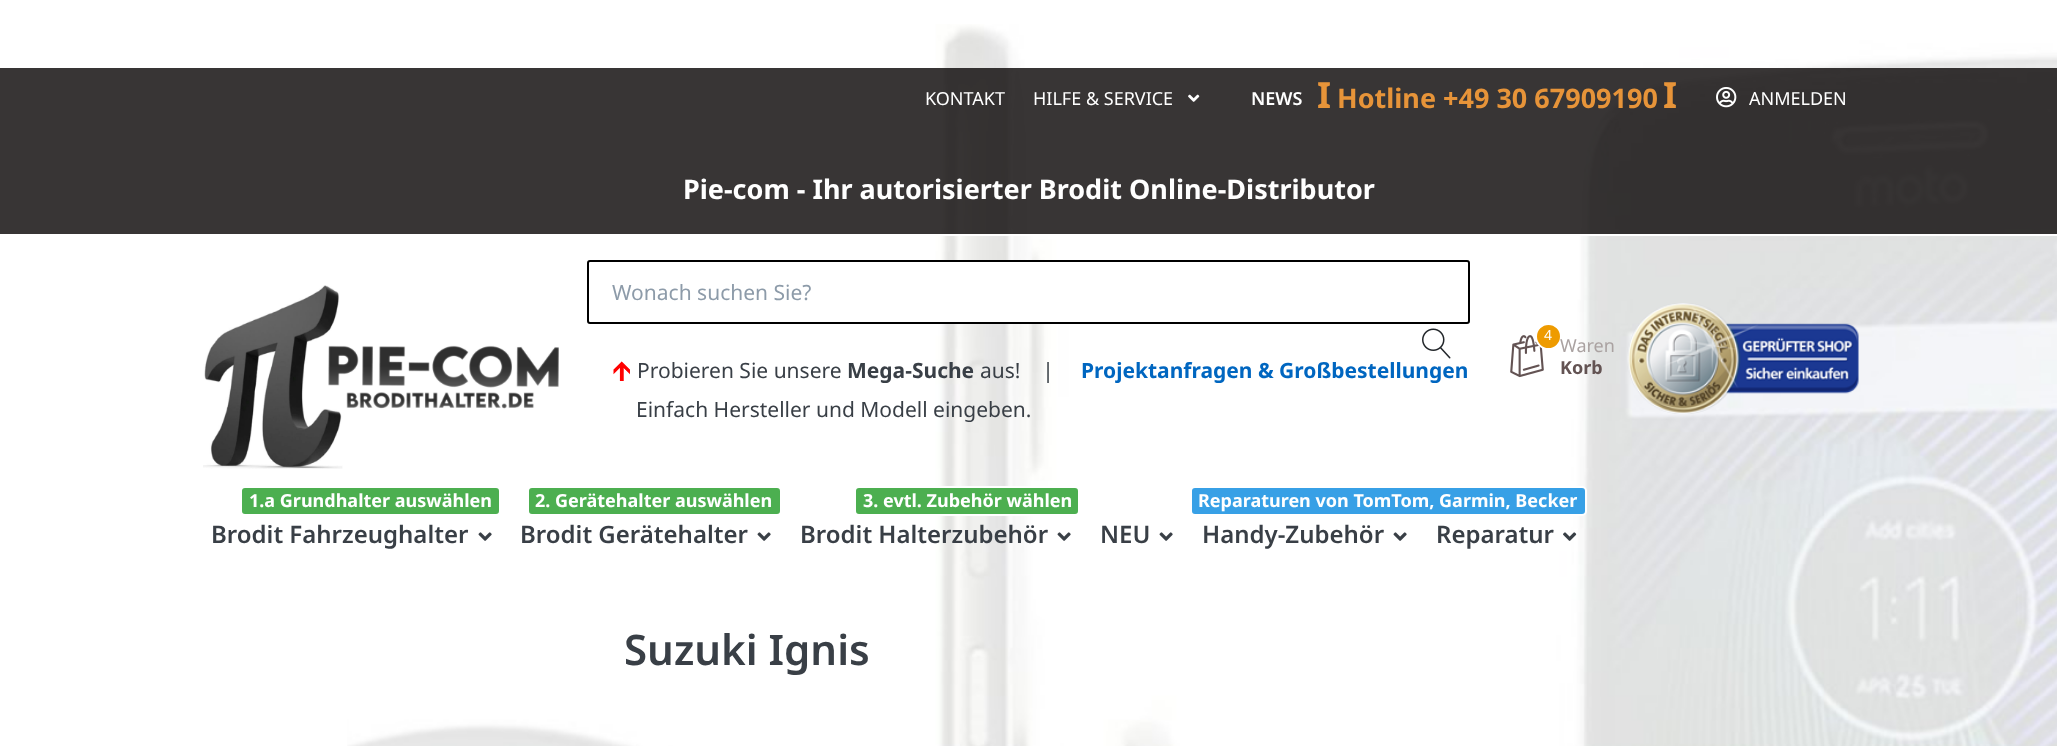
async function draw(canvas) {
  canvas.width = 2057;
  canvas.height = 746;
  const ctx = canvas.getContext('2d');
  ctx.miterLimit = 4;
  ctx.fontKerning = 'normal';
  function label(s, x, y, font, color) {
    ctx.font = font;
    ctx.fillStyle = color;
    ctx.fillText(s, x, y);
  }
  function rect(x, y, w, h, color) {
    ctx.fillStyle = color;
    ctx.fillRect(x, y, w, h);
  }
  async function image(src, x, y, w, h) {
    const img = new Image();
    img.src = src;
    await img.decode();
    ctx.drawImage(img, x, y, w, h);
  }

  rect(0, 0, 2057, 746, '#fff');
  await image('assets/img1.png', 347, 24, 1710, 722);
  rect(0, 68, 2057, 166, '#120e0ed6');
  rect(938, 234, 1119, 2, '#fff');
  label('KONTAKT', 925, 105, '18px Noto Sans', '#fff');
  label('HILFE & SERVICE', 1033, 105, '18px Noto Sans', '#fff');
  await image('assets/img2.png', 1188, 94, 12, 8);
  label('NEWS', 1251, 105, '600 18px Noto Sans', '#fff');
  label('I', 1317, 108, 'bold 36px Noto Sans', '#e79439');
  label('Hotline +49 30 67909190', 1337, 108, 'bold 27px Noto Sans', '#e79439');
  label('I', 1663, 108, 'bold 36px Noto Sans', '#e79439');
  await image('assets/img3.png', 1716, 87, 21, 21);
  label('ANMELDEN', 1749, 105, '18px Noto Sans', '#fff');
  label('Pie-com - Ihr autorisierter Brodit Online-Distributor', 683, 199, 'bold 27px Noto Sans', '#fff');
  await image('assets/img4.png', 203, 285, 356, 184);
  ctx.beginPath();
  ctx.roundRect(588, 261, 881, 62, 2);
  ctx.fill();
  ctx.strokeStyle = '#000';
  ctx.lineWidth = 2;
  ctx.stroke();
  label('Wonach suchen Sie?', 612, 300, '21px Noto Sans', '#8d9ba9');
  await image('assets/img5.png', 1422, 328, 29, 31);
  await image('assets/img6.png', 613, 361, 17, 20);
  label('Probieren Sie unsere', 637, 378, '21px Noto Sans', '#393f46');
  label('Mega-Suche', 847, 378, 'bold 21px Noto Sans', '#393f46');
  label('aus!    |', 980, 378, '21px Noto Sans', '#393f46');
  label('Projektanfragen & Großbestellungen', 1081, 378, 'bold 21px Noto Sans', '#0066c0');
  label('Einfach Hersteller und Modell eingeben.', 636, 417, '21px Noto Sans', '#393f46');
  await image('assets/img7.png', 1510, 335, 34, 43);
  ctx.fillStyle = '#ee9b00';
  ctx.beginPath();
  ctx.arc(1548.5, 336.5, 12.5, 0, 2 * Math.PI);
  ctx.fill();
  ctx.strokeStyle = '#fff';
  ctx.stroke();
  label('4', 1544, 340, '14px Noto Sans', '#fff');
  label('Waren', 1560, 352, '18px Noto Sans', '#aaa2a1');
  label('Korb', 1560, 374, 'bold 18px Noto Sans', '#635353');
  await image('assets/img8.png', 1627, 303, 232, 111);
  ctx.fillStyle = '#4caf50';
  ctx.beginPath();
  ctx.roundRect(241, 487, 259, 28, 4);
  ctx.fill();
  ctx.stroke();
  label('1.a Grundhalter auswählen', 249, 507, 'bold 18px Noto Sans', '#fff');
  label('Brodit Fahrzeughalter', 211, 543, '600 24px Noto Sans', '#393f46');
  await image('assets/img9.png', 478, 532, 14, 9);
  ctx.fillStyle = '#4caf50';
  ctx.beginPath();
  ctx.roundRect(528, 487, 253, 28, 4);
  ctx.fill();
  ctx.stroke();
  label('2. Gerätehalter auswählen', 535, 507, 'bold 18px Noto Sans', '#fff');
  label('Brodit Gerätehalter', 520, 543, '600 24px Noto Sans', '#393f46');
  await image('assets/img9.png', 757, 532, 14, 9);
  ctx.fillStyle = '#4caf50';
  ctx.beginPath();
  ctx.roundRect(855, 487, 224, 28, 4);
  ctx.fill();
  ctx.stroke();
  label('3. evtl. Zubehör wählen', 863, 507, 'bold 18px Noto Sans', '#fff');
  label('Brodit Halterzubehör', 800, 543, '600 24px Noto Sans', '#393f46');
  await image('assets/img9.png', 1057, 532, 14, 9);
  ctx.fillStyle = '#37a0e6';
  ctx.beginPath();
  ctx.roundRect(1191, 487, 395, 28, 4);
  ctx.fill();
  ctx.stroke();
  label('Reparaturen von TomTom, Garmin, Becker', 1198, 507, 'bold 18px Noto Sans', '#fff');
  label('Reparatur', 1436, 543, '600 24px Noto Sans', '#393f46');
  await image('assets/img10.png', 1563, 532, 14, 9);
  label('NEU', 1100, 543, '600 24px Noto Sans', '#393f46');
  await image('assets/img9.png', 1159, 532, 14, 9);
  label('Handy-Zubehör', 1202, 543, '600 24px Noto Sans', '#393f46');
  await image('assets/img9.png', 1393, 532, 14, 9);
  label('Suzuki Ignis', 624, 665, '600 42px Noto Sans', '#393f46');
}

draw(document.querySelector('canvas'));
